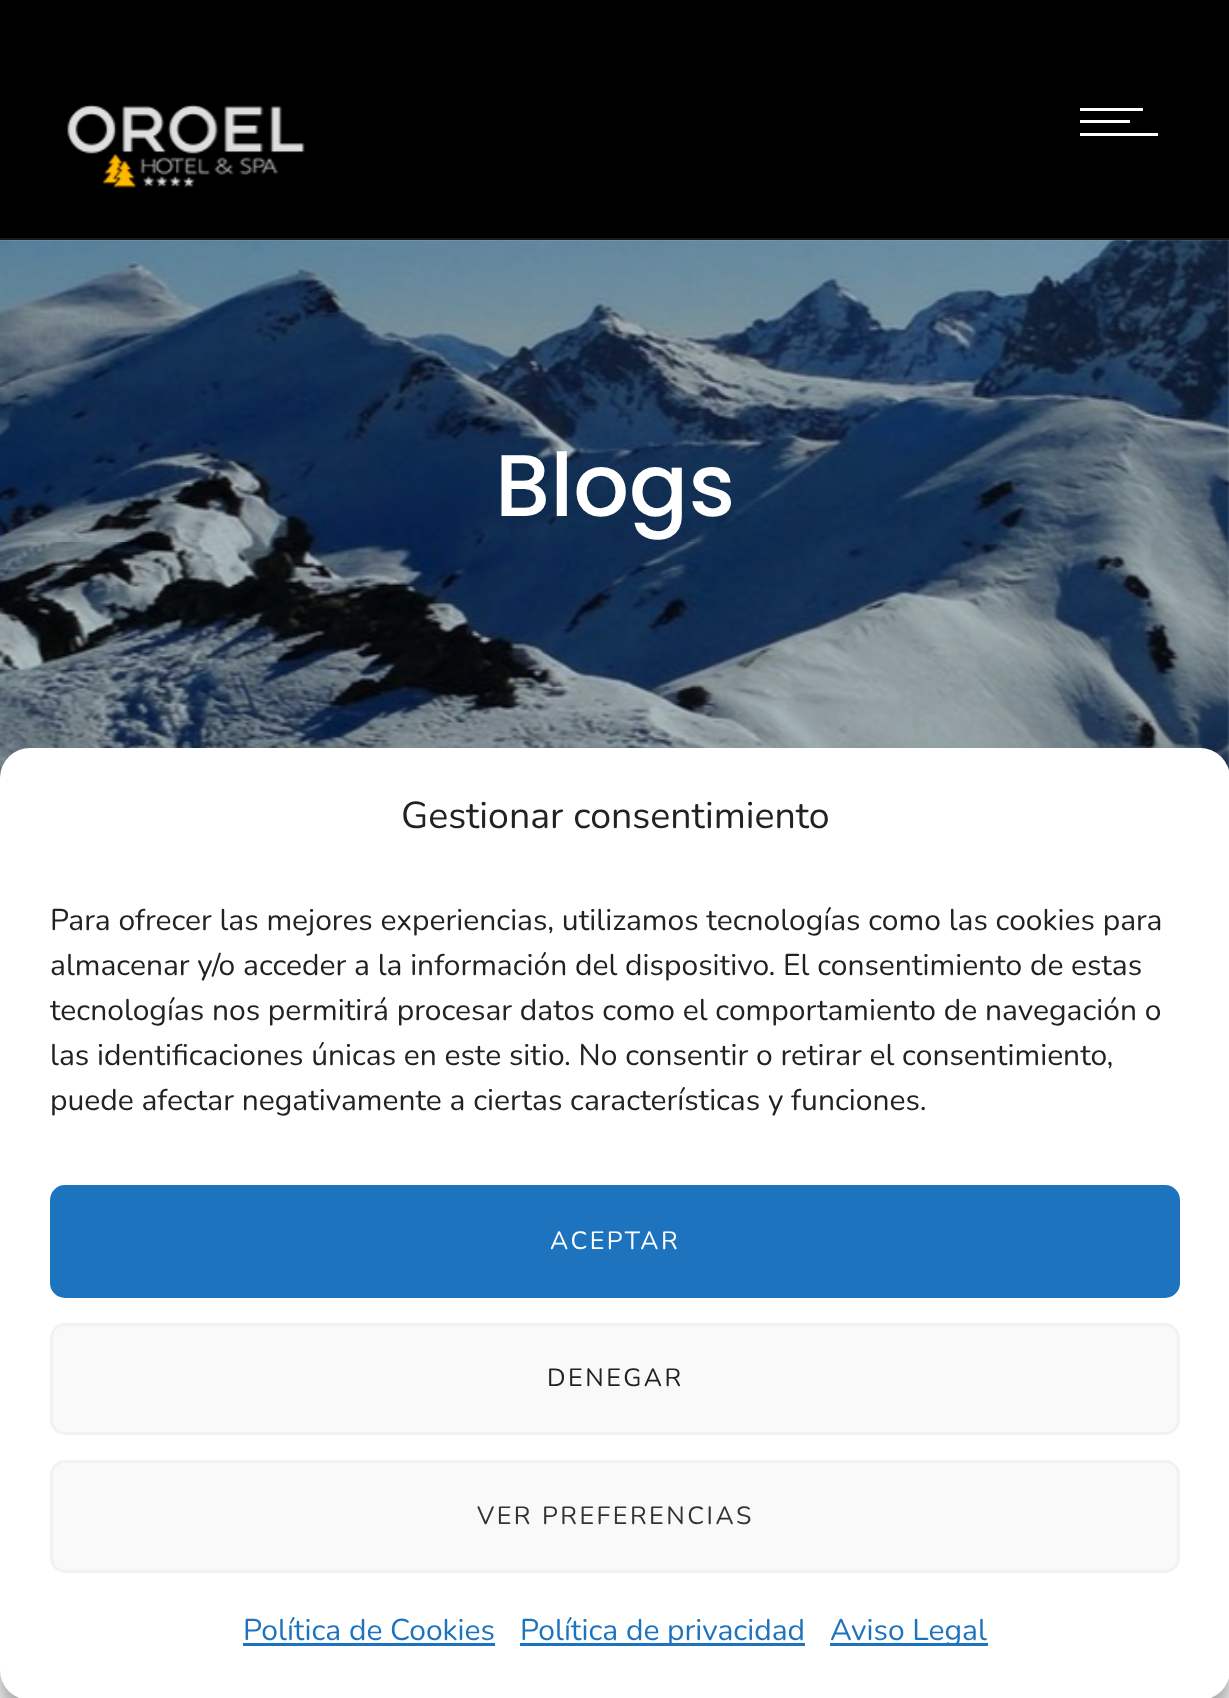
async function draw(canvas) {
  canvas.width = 1229;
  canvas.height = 1698;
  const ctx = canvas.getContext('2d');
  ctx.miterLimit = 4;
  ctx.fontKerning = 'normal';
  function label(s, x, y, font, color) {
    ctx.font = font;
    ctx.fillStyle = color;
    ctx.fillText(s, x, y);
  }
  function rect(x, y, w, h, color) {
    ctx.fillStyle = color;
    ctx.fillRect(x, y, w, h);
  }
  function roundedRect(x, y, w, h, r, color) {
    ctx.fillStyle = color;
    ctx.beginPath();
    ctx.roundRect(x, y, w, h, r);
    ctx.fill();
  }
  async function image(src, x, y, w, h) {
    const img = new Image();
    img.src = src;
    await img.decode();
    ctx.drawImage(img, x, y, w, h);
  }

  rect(0, 0, 1229, 1698, '#fff');
  rect(0, 0, 1229, 240, '#000');
  await image('assets/img2.png', 0, 240, 1229, 538);
  rect(0, 238, 1229, 3, '#ffffff1a');
  await image('assets/img1.png', 67, 104, 238, 84);
  rect(1080, 108, 63, 3, '#fff');
  rect(1080, 120, 50, 3, '#fff');
  rect(1080, 133, 78, 3, '#fff');
  label('Blogs', 495, 516, '500 87.5px Poppins', '#fff');
  ctx.fillStyle = '#0000003b';
  ctx.filter = 'blur(7.5px)';
  ctx.beginPath();
  ctx.roundRect(0, 763, 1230, 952, 30);
  ctx.fill();
  ctx.filter = 'none';
  ctx.fillStyle = '#00000030';
  ctx.filter = 'blur(25px)';
  ctx.beginPath();
  ctx.roundRect(0, 773, 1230, 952, 30);
  ctx.fill();
  ctx.filter = 'none';
  roundedRect(0, 748, 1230, 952, 30, '#fff');
  label('Gestionar consentimiento', 401, 828, '37.5px Nunito', '#222');
  label('Para ofrecer las mejores experiencias, utilizamos tecnologías como las cookies para', 50, 930, '30px Nunito', '#222');
  label('almacenar y/o acceder a la información del dispositivo. El consentimiento de estas', 50, 975, '30px Nunito', '#222');
  label('tecnologías nos permitirá procesar datos como el comportamiento de navegación o', 50, 1020, '30px Nunito', '#222');
  label('las identificaciones únicas en este sitio. No consentir o retirar el consentimiento,', 50, 1065, '30px Nunito', '#222');
  label('puede afectar negativamente a ciertas características y funciones.', 50, 1110, '30px Nunito', '#222');
  ctx.fillStyle = '#1e73be';
  ctx.beginPath();
  ctx.roundRect(51.5, 1186.5, 1127, 110, 13.5);
  ctx.fill();
  ctx.strokeStyle = '#1e73be';
  ctx.lineWidth = 3;
  ctx.stroke();
  ctx.letterSpacing = '2.5px';
  label('ACEPTAR', 550, 1249, '25px Nunito', '#fff');
  ctx.fillStyle = '#f9f9f9';
  ctx.beginPath();
  ctx.roundRect(51.5, 1324.5, 1127, 109, 13.5);
  ctx.fill();
  ctx.strokeStyle = '#f2f2f2';
  ctx.stroke();
  label('DENEGAR', 547, 1386, '25px Nunito', '#222');
  ctx.fillStyle = '#f9f9f9';
  ctx.beginPath();
  ctx.roundRect(51.5, 1461.5, 1127, 110, 13.5);
  ctx.fill();
  ctx.stroke();
  label('VER PREFERENCIAS', 477, 1524, '25px Nunito', '#333');
  ctx.letterSpacing = '0px';
  label('Política de Cookies', 243, 1640, '30px Nunito', '#1e73be');
  rect(243, 1643, 252, 3, '#1e73be');
  rect(520, 1643, 285, 3, '#1e73be');
  label('Política de privacidad', 520, 1640, '30px Nunito', '#1e73be');
  rect(830, 1643, 158, 3, '#1e73be');
  label('Aviso Legal', 830, 1640, '30px Nunito', '#1e73be');
}

draw(document.querySelector('canvas'));
